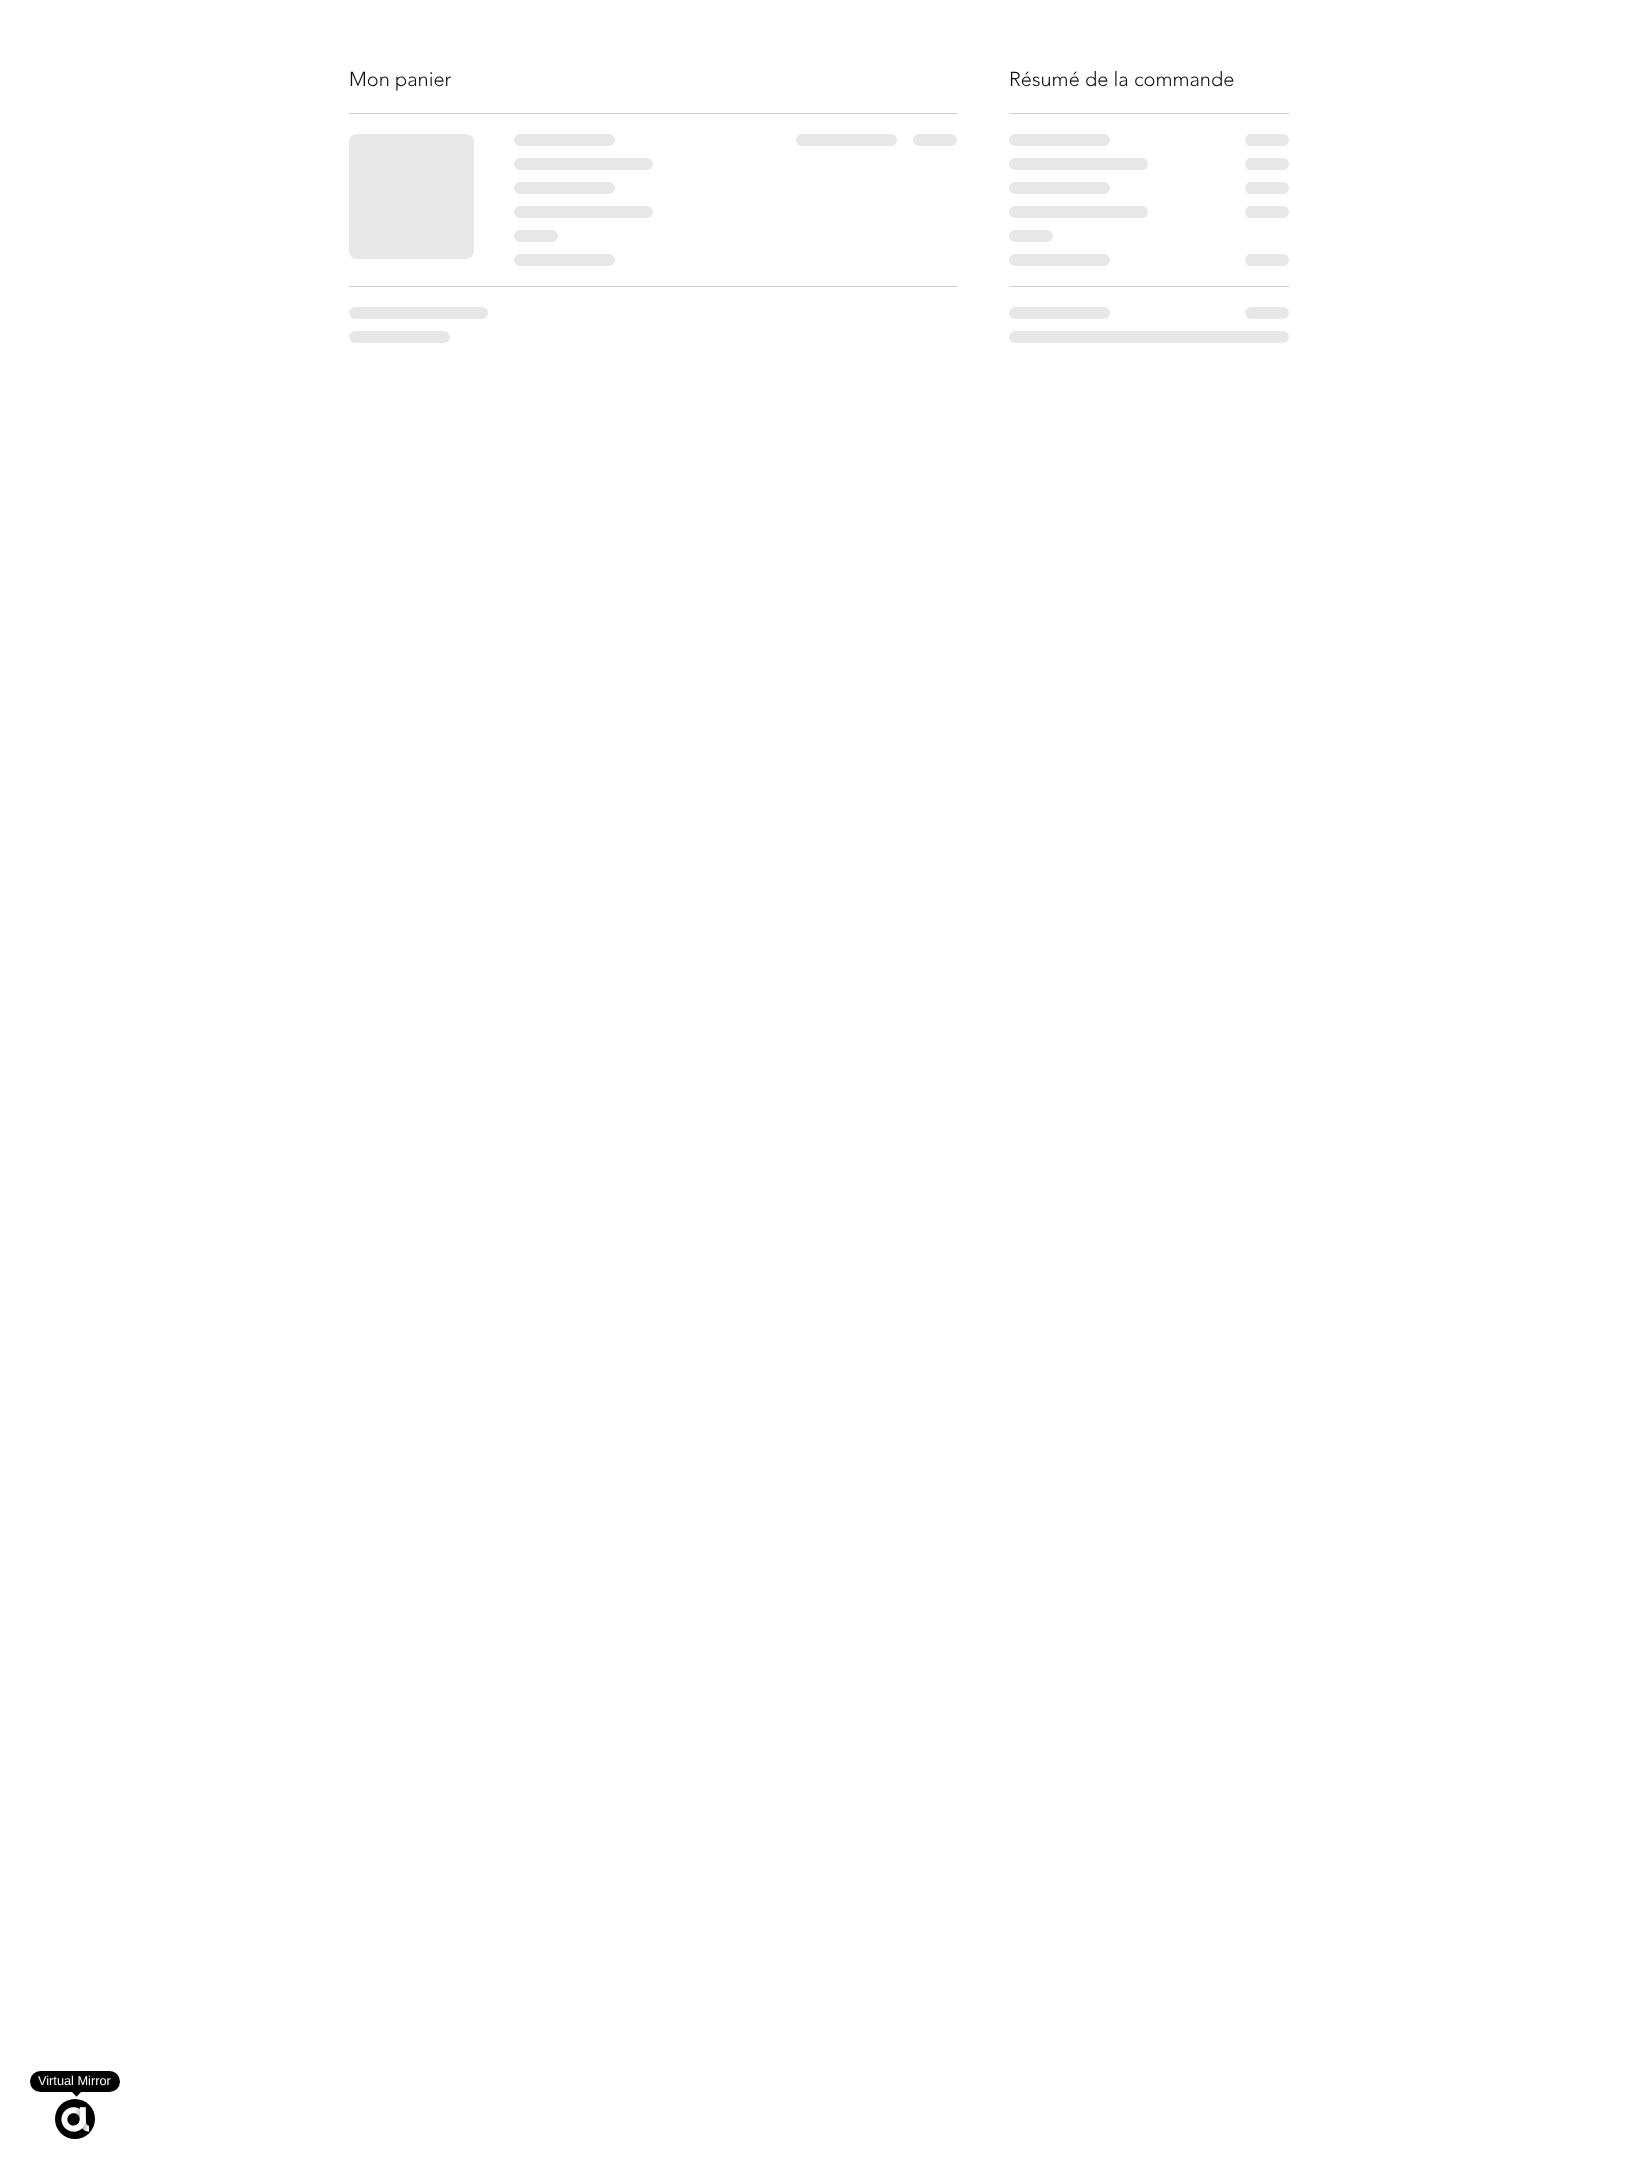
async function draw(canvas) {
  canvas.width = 1638;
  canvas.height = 2184;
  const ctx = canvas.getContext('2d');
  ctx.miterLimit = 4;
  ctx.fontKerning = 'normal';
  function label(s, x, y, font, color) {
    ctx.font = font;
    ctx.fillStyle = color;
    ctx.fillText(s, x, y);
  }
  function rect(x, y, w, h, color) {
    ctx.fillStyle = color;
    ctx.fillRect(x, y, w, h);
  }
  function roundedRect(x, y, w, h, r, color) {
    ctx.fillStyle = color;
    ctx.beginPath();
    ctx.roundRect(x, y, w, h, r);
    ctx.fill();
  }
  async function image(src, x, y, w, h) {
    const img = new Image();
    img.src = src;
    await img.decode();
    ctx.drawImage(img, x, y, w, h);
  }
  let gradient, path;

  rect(0, 0, 1638, 2184, '#fff');
  rect(349, 113, 608, 1, '#cfcfcf');
  label('Mon panier', 349, 86, '300 20px "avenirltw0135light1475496"', '#111');
  gradient = ctx.createLinearGradient(349, 197, 849, 196);
  gradient.addColorStop(0.25, '#e7e7e7');
  gradient.addColorStop(0.37, '#cfcfcf');
  gradient.addColorStop(0.63, '#e7e7e7');
  ctx.fillStyle = gradient;
  ctx.beginPath();
  ctx.roundRect(349, 134, 125, 125, 8);
  ctx.fill();
  gradient = ctx.createLinearGradient(514, 140, 918, 140);
  gradient.addColorStop(0.25, '#e7e7e7');
  gradient.addColorStop(0.37, '#cfcfcf');
  gradient.addColorStop(0.63, '#e7e7e7');
  ctx.fillStyle = gradient;
  ctx.beginPath();
  ctx.roundRect(514, 134, 101, 12, 6);
  ctx.fill();
  gradient = ctx.createLinearGradient(514, 164, 1070, 164);
  gradient.addColorStop(0.25, '#e7e7e7');
  gradient.addColorStop(0.37, '#cfcfcf');
  gradient.addColorStop(0.63, '#e7e7e7');
  ctx.fillStyle = gradient;
  ctx.beginPath();
  ctx.roundRect(514, 158, 139, 12, 6);
  ctx.fill();
  gradient = ctx.createLinearGradient(514, 188, 918, 188);
  gradient.addColorStop(0.25, '#e7e7e7');
  gradient.addColorStop(0.37, '#cfcfcf');
  gradient.addColorStop(0.63, '#e7e7e7');
  ctx.fillStyle = gradient;
  ctx.beginPath();
  ctx.roundRect(514, 182, 101, 12, 6);
  ctx.fill();
  gradient = ctx.createLinearGradient(514, 212, 1070, 212);
  gradient.addColorStop(0.25, '#e7e7e7');
  gradient.addColorStop(0.37, '#cfcfcf');
  gradient.addColorStop(0.63, '#e7e7e7');
  ctx.fillStyle = gradient;
  ctx.beginPath();
  ctx.roundRect(514, 206, 139, 12, 6);
  ctx.fill();
  gradient = ctx.createLinearGradient(514, 236, 690, 236);
  gradient.addColorStop(0.25, '#e7e7e7');
  gradient.addColorStop(0.37, '#cfcfcf');
  gradient.addColorStop(0.63, '#e7e7e7');
  ctx.fillStyle = gradient;
  ctx.beginPath();
  ctx.roundRect(514, 230, 44, 12, 6);
  ctx.fill();
  gradient = ctx.createLinearGradient(514, 260, 918, 260);
  gradient.addColorStop(0.25, '#e7e7e7');
  gradient.addColorStop(0.37, '#cfcfcf');
  gradient.addColorStop(0.63, '#e7e7e7');
  ctx.fillStyle = gradient;
  ctx.beginPath();
  ctx.roundRect(514, 254, 101, 12, 6);
  ctx.fill();
  gradient = ctx.createLinearGradient(796, 140, 1200, 140);
  gradient.addColorStop(0.25, '#e7e7e7');
  gradient.addColorStop(0.37, '#cfcfcf');
  gradient.addColorStop(0.63, '#e7e7e7');
  ctx.fillStyle = gradient;
  ctx.beginPath();
  ctx.roundRect(796, 134, 101, 12, 6);
  ctx.fill();
  gradient = ctx.createLinearGradient(913, 140, 1089, 140);
  gradient.addColorStop(0.25, '#e7e7e7');
  gradient.addColorStop(0.37, '#cfcfcf');
  gradient.addColorStop(0.63, '#e7e7e7');
  ctx.fillStyle = gradient;
  ctx.beginPath();
  ctx.roundRect(913, 134, 44, 12, 6);
  ctx.fill();
  rect(349, 286, 608, 1, '#cfcfcf');
  gradient = ctx.createLinearGradient(349, 313, 905, 313);
  gradient.addColorStop(0.25, '#e7e7e7');
  gradient.addColorStop(0.37, '#cfcfcf');
  gradient.addColorStop(0.63, '#e7e7e7');
  ctx.fillStyle = gradient;
  ctx.beginPath();
  ctx.roundRect(349, 307, 139, 12, 6);
  ctx.fill();
  gradient = ctx.createLinearGradient(349, 337, 753, 337);
  gradient.addColorStop(0.25, '#e7e7e7');
  gradient.addColorStop(0.37, '#cfcfcf');
  gradient.addColorStop(0.63, '#e7e7e7');
  ctx.fillStyle = gradient;
  ctx.beginPath();
  ctx.roundRect(349, 331, 101, 12, 6);
  ctx.fill();
  rect(1009, 113, 280, 1, '#cfcfcf');
  label('Résumé de la commande', 1009, 86, '300 20px "avenirltw0135light1475496"', '#111');
  gradient = ctx.createLinearGradient(1009, 140, 1413, 140);
  gradient.addColorStop(0.25, '#e7e7e7');
  gradient.addColorStop(0.37, '#cfcfcf');
  gradient.addColorStop(0.63, '#e7e7e7');
  ctx.fillStyle = gradient;
  ctx.beginPath();
  ctx.roundRect(1009, 134, 101, 12, 6);
  ctx.fill();
  gradient = ctx.createLinearGradient(1245, 140, 1421, 140);
  gradient.addColorStop(0.25, '#e7e7e7');
  gradient.addColorStop(0.37, '#cfcfcf');
  gradient.addColorStop(0.63, '#e7e7e7');
  ctx.fillStyle = gradient;
  ctx.beginPath();
  ctx.roundRect(1245, 134, 44, 12, 6);
  ctx.fill();
  gradient = ctx.createLinearGradient(1009, 164, 1565, 164);
  gradient.addColorStop(0.25, '#e7e7e7');
  gradient.addColorStop(0.37, '#cfcfcf');
  gradient.addColorStop(0.63, '#e7e7e7');
  ctx.fillStyle = gradient;
  ctx.beginPath();
  ctx.roundRect(1009, 158, 139, 12, 6);
  ctx.fill();
  gradient = ctx.createLinearGradient(1245, 164, 1421, 164);
  gradient.addColorStop(0.25, '#e7e7e7');
  gradient.addColorStop(0.37, '#cfcfcf');
  gradient.addColorStop(0.63, '#e7e7e7');
  ctx.fillStyle = gradient;
  ctx.beginPath();
  ctx.roundRect(1245, 158, 44, 12, 6);
  ctx.fill();
  gradient = ctx.createLinearGradient(1009, 188, 1413, 188);
  gradient.addColorStop(0.25, '#e7e7e7');
  gradient.addColorStop(0.37, '#cfcfcf');
  gradient.addColorStop(0.63, '#e7e7e7');
  ctx.fillStyle = gradient;
  ctx.beginPath();
  ctx.roundRect(1009, 182, 101, 12, 6);
  ctx.fill();
  gradient = ctx.createLinearGradient(1245, 188, 1421, 188);
  gradient.addColorStop(0.25, '#e7e7e7');
  gradient.addColorStop(0.37, '#cfcfcf');
  gradient.addColorStop(0.63, '#e7e7e7');
  ctx.fillStyle = gradient;
  ctx.beginPath();
  ctx.roundRect(1245, 182, 44, 12, 6);
  ctx.fill();
  gradient = ctx.createLinearGradient(1009, 212, 1565, 212);
  gradient.addColorStop(0.25, '#e7e7e7');
  gradient.addColorStop(0.37, '#cfcfcf');
  gradient.addColorStop(0.63, '#e7e7e7');
  ctx.fillStyle = gradient;
  ctx.beginPath();
  ctx.roundRect(1009, 206, 139, 12, 6);
  ctx.fill();
  gradient = ctx.createLinearGradient(1245, 212, 1421, 212);
  gradient.addColorStop(0.25, '#e7e7e7');
  gradient.addColorStop(0.37, '#cfcfcf');
  gradient.addColorStop(0.63, '#e7e7e7');
  ctx.fillStyle = gradient;
  ctx.beginPath();
  ctx.roundRect(1245, 206, 44, 12, 6);
  ctx.fill();
  gradient = ctx.createLinearGradient(1009, 236, 1185, 236);
  gradient.addColorStop(0.25, '#e7e7e7');
  gradient.addColorStop(0.37, '#cfcfcf');
  gradient.addColorStop(0.63, '#e7e7e7');
  ctx.fillStyle = gradient;
  ctx.beginPath();
  ctx.roundRect(1009, 230, 44, 12, 6);
  ctx.fill();
  gradient = ctx.createLinearGradient(1009, 260, 1413, 260);
  gradient.addColorStop(0.25, '#e7e7e7');
  gradient.addColorStop(0.37, '#cfcfcf');
  gradient.addColorStop(0.63, '#e7e7e7');
  ctx.fillStyle = gradient;
  ctx.beginPath();
  ctx.roundRect(1009, 254, 101, 12, 6);
  ctx.fill();
  gradient = ctx.createLinearGradient(1245, 260, 1421, 260);
  gradient.addColorStop(0.25, '#e7e7e7');
  gradient.addColorStop(0.37, '#cfcfcf');
  gradient.addColorStop(0.63, '#e7e7e7');
  ctx.fillStyle = gradient;
  ctx.beginPath();
  ctx.roundRect(1245, 254, 44, 12, 6);
  ctx.fill();
  rect(1009, 286, 280, 1, '#cfcfcf');
  gradient = ctx.createLinearGradient(1009, 313, 1413, 313);
  gradient.addColorStop(0.25, '#e7e7e7');
  gradient.addColorStop(0.37, '#cfcfcf');
  gradient.addColorStop(0.63, '#e7e7e7');
  ctx.fillStyle = gradient;
  ctx.beginPath();
  ctx.roundRect(1009, 307, 101, 12, 6);
  ctx.fill();
  gradient = ctx.createLinearGradient(1245, 313, 1421, 313);
  gradient.addColorStop(0.25, '#e7e7e7');
  gradient.addColorStop(0.37, '#cfcfcf');
  gradient.addColorStop(0.63, '#e7e7e7');
  ctx.fillStyle = gradient;
  ctx.beginPath();
  ctx.roundRect(1245, 307, 44, 12, 6);
  ctx.fill();
  gradient = ctx.createLinearGradient(1009, 337, 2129, 337);
  gradient.addColorStop(0.25, '#e7e7e7');
  gradient.addColorStop(0.37, '#cfcfcf');
  gradient.addColorStop(0.63, '#e7e7e7');
  ctx.fillStyle = gradient;
  ctx.beginPath();
  ctx.roundRect(1009, 331, 280, 12, 6);
  ctx.fill();
  ctx.fillStyle = '#000';
  ctx.beginPath();
  ctx.arc(75, 2119, 20, 0, 2 * Math.PI);
  ctx.fill();
  roundedRect(30, 2071, 90, 21, 10.5, '#000');
  label('Virtual Mirror', 38, 2085, '12.75px Liberation Sans', '#fff');
  ctx.fillStyle = '#000';
  path = new Path2D('M79 2089.5L81 2092L76.5 2096.5L74.5 2094Z');
  ctx.fill(path);
  path = new Path2D('M74.5 2089.5L79 2094L76.5 2096.5L72 2092Z');
  ctx.fill(path);
  await image('assets/img1.png', 61, 2107, 28, 25);
}

draw(document.querySelector('canvas'));
